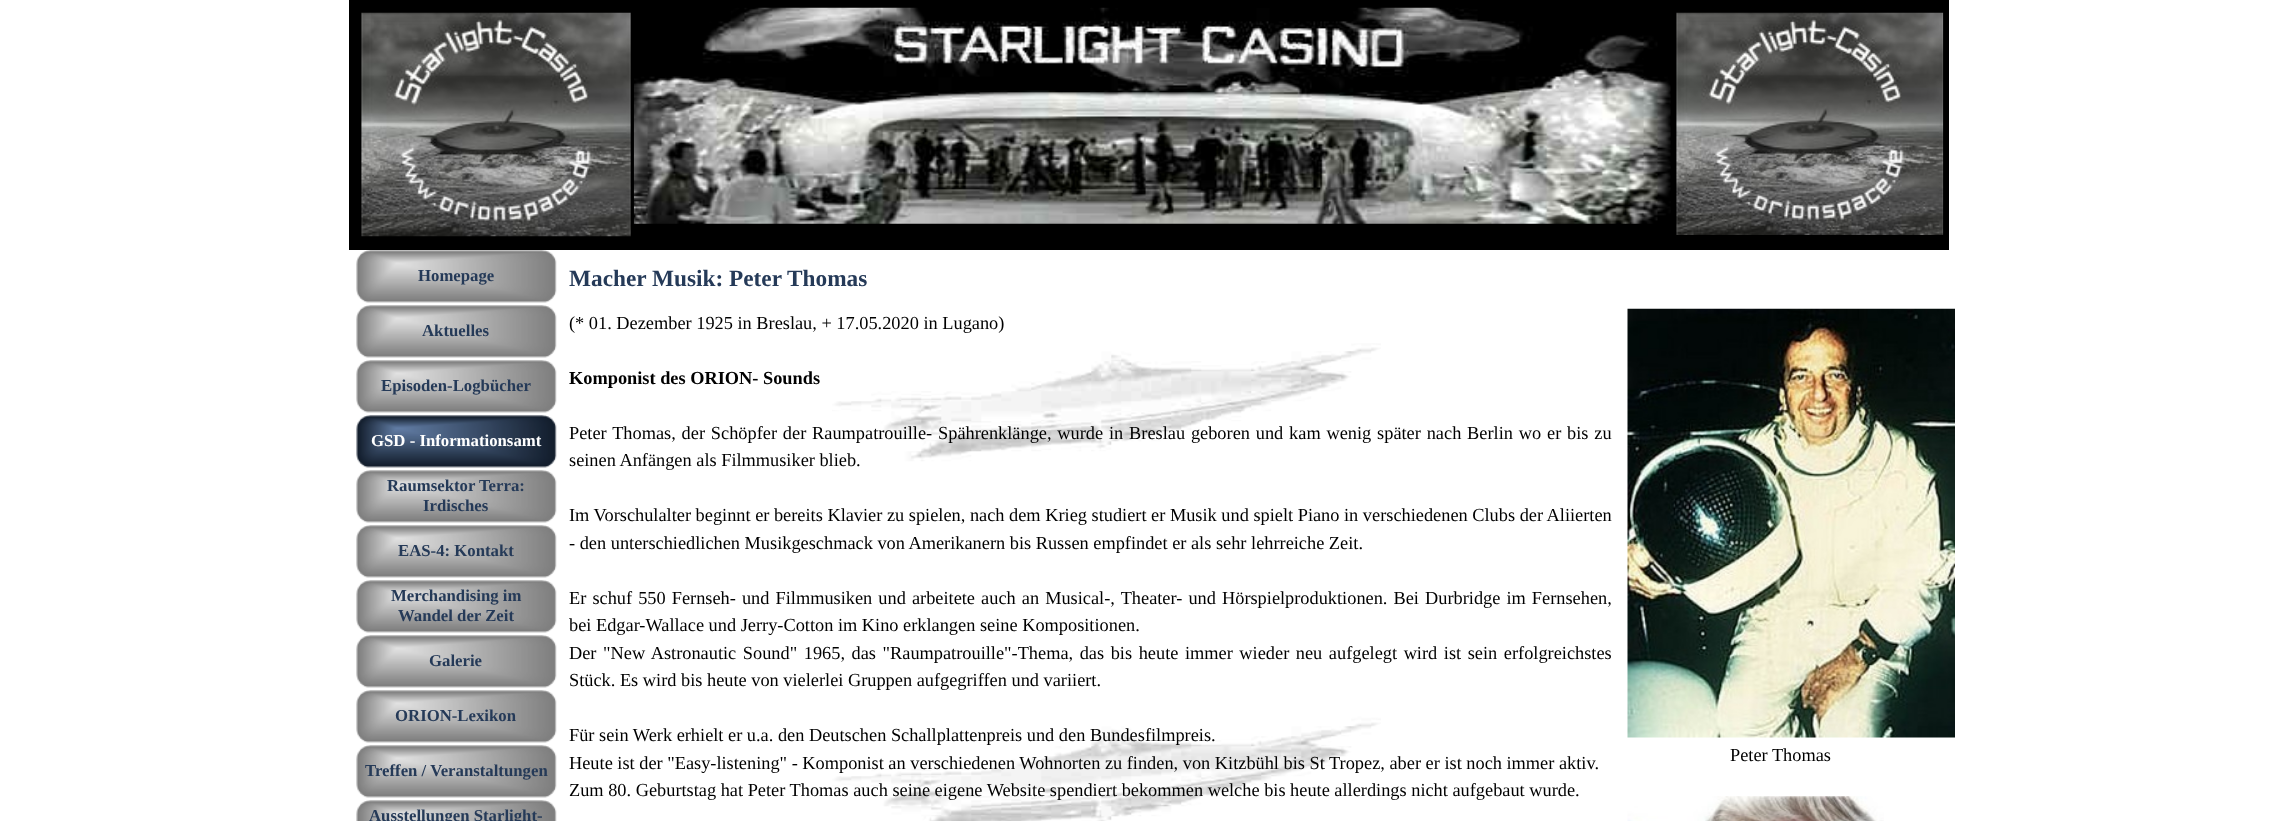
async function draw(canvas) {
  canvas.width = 2296;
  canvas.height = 821;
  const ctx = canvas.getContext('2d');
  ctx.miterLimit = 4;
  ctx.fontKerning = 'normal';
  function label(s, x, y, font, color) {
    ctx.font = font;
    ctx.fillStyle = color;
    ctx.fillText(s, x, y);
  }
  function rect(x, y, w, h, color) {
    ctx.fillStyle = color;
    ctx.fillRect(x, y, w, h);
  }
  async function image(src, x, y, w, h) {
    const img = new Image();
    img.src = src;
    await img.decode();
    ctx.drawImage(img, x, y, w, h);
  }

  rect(0, 0, 2296, 821, '#fff');
  rect(349, 0, 1600, 250, '#000');
  await image('assets/img1.png', 361, 12, 270, 225);
  await image('assets/img2.png', 633, 7, 1038, 217);
  await image('assets/img3.png', 1676, 12, 268, 223);
  await image('assets/img4.png', 356, 250, 201, 53);
  label('Homepage', 418, 281, 'bold 16.75px Liberation Serif', '#253a58');
  await image('assets/img4.png', 356, 305, 201, 53);
  label('Aktuelles', 422, 336, 'bold 16.75px Liberation Serif', '#253a58');
  await image('assets/img4.png', 356, 360, 201, 53);
  label('Episoden-Logbücher', 381, 391, 'bold 16.75px Liberation Serif', '#253a58');
  await image('assets/img5.png', 356, 415, 201, 53);
  label('GSD - Informationsamt', 371, 446, 'bold 16.75px Liberation Serif', '#fff');
  await image('assets/img4.png', 356, 470, 201, 53);
  label('Raumsektor Terra:', 387, 491, 'bold 16.75px Liberation Serif', '#253a58');
  label('Irdisches', 423, 511, 'bold 16.75px Liberation Serif', '#253a58');
  await image('assets/img4.png', 356, 525, 201, 53);
  label('EAS-4: Kontakt', 398, 556, 'bold 16.75px Liberation Serif', '#253a58');
  await image('assets/img6.png', 356, 580, 201, 53);
  label('Merchandising im', 391, 601, 'bold 16.75px Liberation Serif', '#253a58');
  label('Wandel der Zeit', 398, 621, 'bold 16.75px Liberation Serif', '#253a58');
  await image('assets/img4.png', 356, 635, 201, 53);
  label('Galerie', 429, 666, 'bold 16.75px Liberation Serif', '#253a58');
  await image('assets/img4.png', 356, 690, 201, 53);
  label('ORION-Lexikon', 395, 721, 'bold 16.75px Liberation Serif', '#253a58');
  await image('assets/img4.png', 356, 745, 201, 53);
  label('Treffen / Veranstaltungen', 365, 776, 'bold 16.75px Liberation Serif', '#253a58');
  await image('assets/img7.png', 356, 800, 201, 21);
  label('Ausstellungen Starlight-', 369, 821, 'bold 16.75px Liberation Serif', '#253a58');
  label('Macher Musik: Peter Thomas', 569, 286, 'bold 23.3px Liberation Serif', '#253a58');
  label('(* 01. Dezember 1925 in Breslau, + 17.05.2020 in Lugano)', 569, 329, '18.33px Liberation Serif', '#000');
  label('Komponist des ORION- Sounds', 569, 384, 'bold 18.33px Liberation Serif', '#000');
  await image('assets/img10.png', 832, 343, 549, 478);
  ctx.wordSpacing = '1.25px';
  label('Peter Thomas, der Schöpfer der Raumpatrouille- Spährenklänge, wurde in Breslau geboren und kam wenig später nach Berlin wo er bis zu', 569, 439, '18.33px Liberation Serif', '#000');
  ctx.wordSpacing = '0px';
  label('seinen Anfängen als Filmmusiker blieb.', 569, 466, '18.33px Liberation Serif', '#000');
  label('Im Vorschulalter beginnt er bereits Klavier zu spielen, nach dem Krieg studiert er Musik und spielt Piano in verschiedenen Clubs der Aliierten', 569, 521, '18.33px Liberation Serif', '#000');
  label('- den unterschiedlichen Musikgeschmack von Amerikanern bis Russen empfindet er als sehr lehrreiche Zeit.', 569, 549, '18.33px Liberation Serif', '#000');
  ctx.wordSpacing = '1.5px';
  label('Er schuf 550 Fernseh- und Filmmusiken und arbeitete auch an Musical-, Theater- und Hörspielproduktionen. Bei Durbridge im Fernsehen,', 569, 604, '18.33px Liberation Serif', '#000');
  ctx.wordSpacing = '0px';
  label('bei Edgar-Wallace und Jerry-Cotton im Kino erklangen seine Kompositionen.', 569, 631, '18.33px Liberation Serif', '#000');
  ctx.wordSpacing = '2px';
  label('Der "New Astronautic Sound" 1965, das "Raumpatrouille"-Thema, das bis heute immer wieder neu aufgelegt wird ist sein erfolgreichstes', 569, 659, '18.33px Liberation Serif', '#000');
  ctx.wordSpacing = '0px';
  label('Stück. Es wird bis heute von vielerlei Gruppen aufgegriffen und variiert.', 569, 686, '18.33px Liberation Serif', '#000');
  label('Für sein Werk erhielt er u.a. den Deutschen Schallplattenpreis und den Bundesfilmpreis.', 569, 741, '18.33px Liberation Serif', '#000');
  label('Heute ist der "Easy-listening" - Komponist an verschiedenen Wohnorten zu finden, von Kitzbühl bis St Tropez, aber er ist noch immer aktiv.', 569, 769, '18.33px Liberation Serif', '#000');
  label('Zum 80. Geburtstag hat Peter Thomas auch seine eigene Website spendiert bekommen welche bis heute allerdings nicht aufgebaut wurde.', 569, 796, '18.33px Liberation Serif', '#000');
  await image('assets/img8.png', 1627, 308, 328, 430);
  label('Peter Thomas', 1730, 761, '18.33px Liberation Serif', '#000');
  await image('assets/img9.png', 1627, 796, 257, 25);
}

draw(document.querySelector('canvas'));
